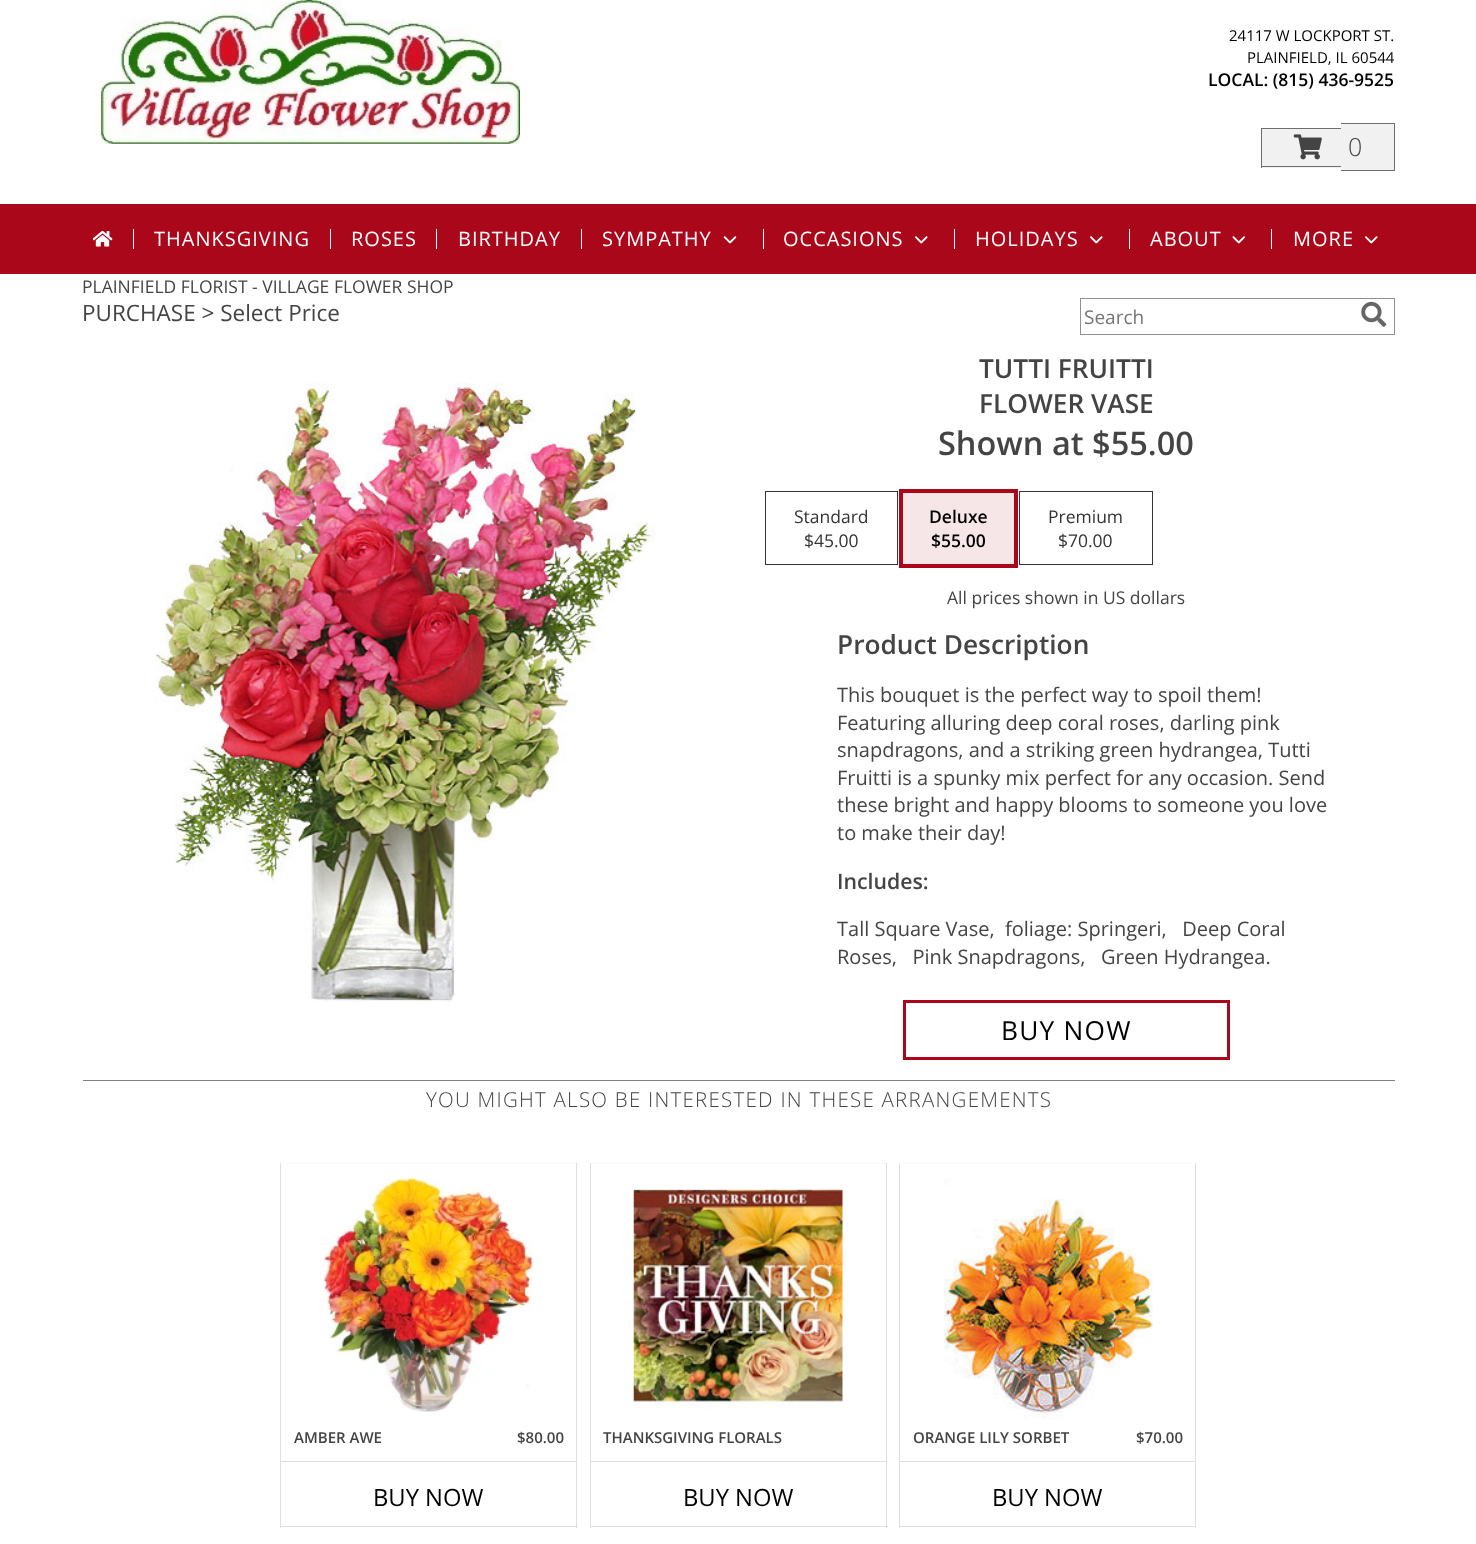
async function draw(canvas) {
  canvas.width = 1476;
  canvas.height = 1544;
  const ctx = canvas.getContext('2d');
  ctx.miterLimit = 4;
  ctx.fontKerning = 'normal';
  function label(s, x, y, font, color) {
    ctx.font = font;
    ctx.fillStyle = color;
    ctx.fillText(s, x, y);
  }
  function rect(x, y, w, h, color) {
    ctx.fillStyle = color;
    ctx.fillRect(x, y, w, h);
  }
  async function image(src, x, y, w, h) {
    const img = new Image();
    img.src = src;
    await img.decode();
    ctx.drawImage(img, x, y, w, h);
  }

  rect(0, 0, 1476, 1544, '#fff');
  await image('assets/img1.png', 101, 0, 419, 144);
  label('24117 W LOCKPORT ST.', 1229, 41, '15px Open Sans', '#000');
  label('PLAINFIELD, IL 60544', 1247, 63, '15px Open Sans', '#000');
  label('LOCAL: (815) 436-9525', 1208, 86, '600 17.5px Open Sans', '#000');
  rect(1262, 129, 79, 39, '#f1f1f1');
  rect(1261, 128, 80, 1, '#6e6e6e');
  rect(1261, 166, 80, 1, '#6e6e6e');
  rect(1261, 128, 1, 40, '#6e6e6e');
  rect(1341, 123, 7, 48, '#f1f1f1');
  rect(1341, 123, 54, 1, '#6e6e6e');
  rect(1341, 170, 7, 1, '#6e6e6e');
  rect(1348, 124, 46, 46, '#f1f1f1');
  rect(1394, 123, 1, 48, '#6e6e6e');
  rect(1348, 170, 47, 1, '#6e6e6e');
  await image('assets/img2.png', 1293, 134, 29, 26);
  label('0', 1348, 156, '300 25px Open Sans', '#444');
  rect(0, 204, 1476, 70, '#ab071a');
  await image('assets/img3.png', 93, 231, 20, 16);
  rect(133, 229, 1, 20, '#fff');
  ctx.letterSpacing = '1px';
  label('THANKSGIVING', 154, 246, '20px Open Sans', '#fff');
  rect(330, 229, 1, 20, '#fff');
  label('ROSES', 351, 246, '20px Open Sans', '#fff');
  rect(436, 229, 1, 20, '#fff');
  label('BIRTHDAY', 458, 246, '20px Open Sans', '#fff');
  rect(581, 229, 1, 20, '#fff');
  label('SYMPATHY', 602, 246, '20px Open Sans', '#fff');
  await image('assets/img4.png', 723, 236, 14, 8);
  rect(763, 229, 1, 20, '#fff');
  label('OCCASIONS', 783, 246, '20px Open Sans', '#fff');
  await image('assets/img5.png', 915, 236, 13, 8);
  rect(954, 229, 1, 20, '#fff');
  label('HOLIDAYS', 975, 246, '20px Open Sans', '#fff');
  await image('assets/img5.png', 1090, 236, 13, 8);
  rect(1129, 229, 1, 20, '#fff');
  label('ABOUT', 1150, 246, '20px Open Sans', '#fff');
  await image('assets/img6.png', 1232, 236, 13, 8);
  rect(1271, 229, 1, 20, '#fff');
  label('MORE', 1293, 246, '20px Open Sans', '#fff');
  await image('assets/img5.png', 1365, 236, 13, 8);
  ctx.letterSpacing = '0px';
  label('PLAINFIELD FLORIST - VILLAGE FLOWER SHOP', 82, 293, '17.5px Open Sans', '#444');
  label('PURCHASE > Select Price', 82, 321, '22.5px Open Sans', '#444');
  ctx.strokeStyle = '#919191';
  ctx.strokeRect(1080.5, 298.5, 314, 36);
  label('Search', 1084, 324, '19px Open Sans', '#757575');
  await image('assets/img7.png', 1361, 301, 26, 26);
  await image('assets/img8.png', 155, 382, 500, 620);
  label('TUTTI FRUITTI', 979, 378, '600 26.25px Open Sans', '#444');
  label('FLOWER VASE', 979, 413, '600 26.25px Open Sans', '#444');
  label('Shown at $55.00', 938, 455, '600 32.5px Open Sans', '#444');
  ctx.strokeStyle = '#333';
  ctx.strokeRect(765.5, 491.5, 132, 73);
  label('Standard', 794, 523, '17.5px Open Sans', '#333');
  label('$45.00', 804, 547, '17.5px Open Sans', '#333');
  ctx.strokeStyle = '#ab071a';
  ctx.lineWidth = 4;
  ctx.strokeRect(901, 491, 115, 75);
  rect(903, 493, 111, 71, '#f6e6e8');
  label('Deluxe', 929, 523, '600 17.5px Open Sans', '#000');
  label('$55.00', 931, 547, '600 17.5px Open Sans', '#000');
  ctx.strokeStyle = '#333';
  ctx.lineWidth = 1;
  ctx.strokeRect(1019.5, 491.5, 133, 73);
  label('Premium', 1048, 523, '17.5px Open Sans', '#333');
  label('$70.00', 1058, 547, '17.5px Open Sans', '#333');
  label('All prices shown in US dollars', 947, 604, '17.5px Open Sans', '#444');
  label('Product Description', 837, 654, '600 26.25px Open Sans', '#444');
  label('This bouquet is the perfect way to spoil them!', 837, 702, '20px Open Sans', '#444');
  label('Featuring alluring deep coral roses, darling pink', 837, 730, '20px Open Sans', '#444');
  label('snapdragons, and a striking green hydrangea, Tutti', 837, 757, '20px Open Sans', '#444');
  label('Fruitti is a spunky mix perfect for any occasion. Send', 837, 785, '20px Open Sans', '#444');
  label('these bright and happy blooms to someone you love', 837, 812, '20px Open Sans', '#444');
  label('to make their day!', 837, 840, '20px Open Sans', '#444');
  label('Includes:', 837, 889, '600 21.25px Open Sans', '#444');
  label('Tall Square Vase,  foliage: Springeri,   Deep Coral', 837, 936, '20px Open Sans', '#444');
  label('Roses,   Pink Snapdragons,   Green Hydrangea.', 837, 964, '20px Open Sans', '#444');
  ctx.strokeStyle = '#ab071a';
  ctx.lineWidth = 3;
  ctx.strokeRect(904.5, 1001.5, 324, 57);
  ctx.letterSpacing = '1.25px';
  label('BUY NOW', 1001, 1040, '26.25px Open Sans', '#000');
  rect(83, 1080, 1312, 1, '#808080');
  label('YOU MIGHT ALSO BE INTERESTED IN THESE ARRANGEMENTS', 426, 1107, '300 20.5px Open Sans', '#444');
  rect(280, 1163, 298, 1, '#f9f9f9');
  rect(576, 1163, 1, 365, '#e2dedd');
  rect(280, 1526, 298, 1, '#e2dedd');
  rect(280, 1163, 1, 365, '#e2dedd');
  await image('assets/img9.png', 323, 1177, 210, 235);
  ctx.letterSpacing = '0px';
  label('AMBER AWE', 294, 1443, '600 15px Open Sans', '#444');
  label('$80.00', 517, 1443, '600 15px Open Sans', '#444');
  rect(281, 1461, 295, 1, '#e2dedd');
  label('BUY NOW', 373, 1506, '23.75px Open Sans', '#000');
  rect(590, 1163, 298, 1, '#f9f9f9');
  rect(886, 1163, 1, 365, '#e2dedd');
  rect(590, 1526, 298, 1, '#e2dedd');
  rect(590, 1163, 1, 365, '#e2dedd');
  await image('assets/img10.png', 633, 1188, 210, 221);
  label('THANKSGIVING FLORALS', 603, 1443, '600 15px Open Sans', '#444');
  rect(591, 1461, 295, 1, '#e2dedd');
  label('BUY NOW', 683, 1506, '23.75px Open Sans', '#000');
  rect(899, 1163, 297, 1, '#f9f9f9');
  rect(1195, 1163, 1, 365, '#e2dedd');
  rect(899, 1526, 297, 1, '#e2dedd');
  rect(899, 1163, 1, 365, '#e2dedd');
  await image('assets/img11.png', 943, 1179, 210, 240);
  label('ORANGE LILY SORBET', 913, 1443, '600 15px Open Sans', '#444');
  label('$70.00', 1136, 1443, '600 15px Open Sans', '#444');
  rect(900, 1461, 295, 1, '#e2dedd');
  label('BUY NOW', 992, 1506, '23.75px Open Sans', '#000');
}

draw(document.querySelector('canvas'));
